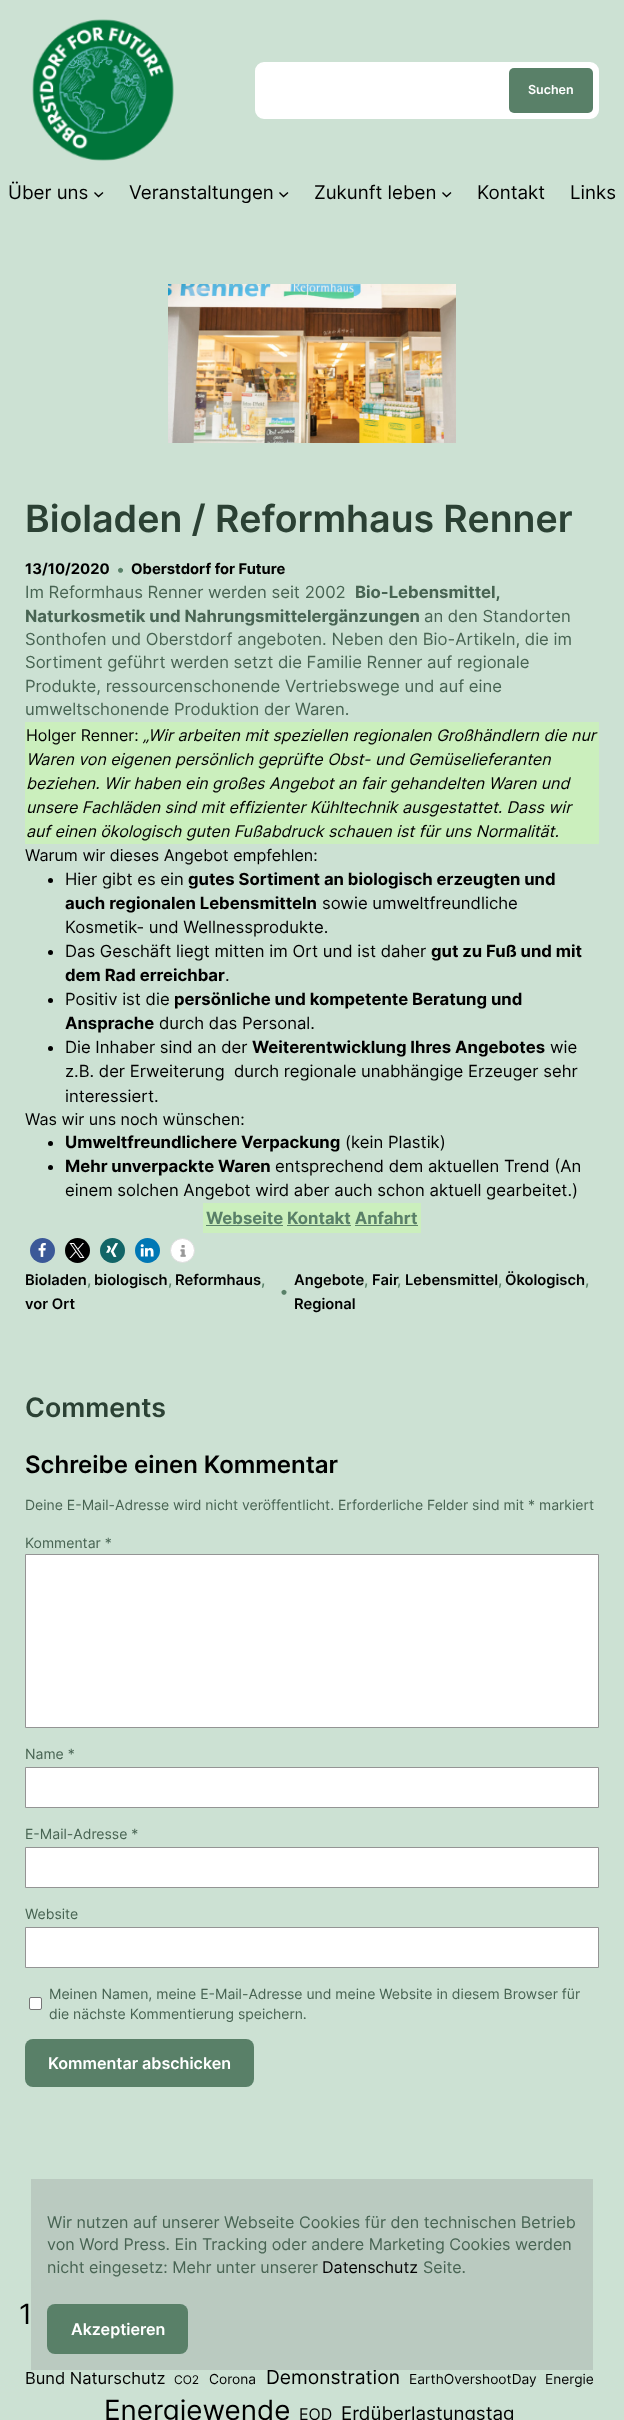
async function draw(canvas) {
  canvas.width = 624;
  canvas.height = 2420;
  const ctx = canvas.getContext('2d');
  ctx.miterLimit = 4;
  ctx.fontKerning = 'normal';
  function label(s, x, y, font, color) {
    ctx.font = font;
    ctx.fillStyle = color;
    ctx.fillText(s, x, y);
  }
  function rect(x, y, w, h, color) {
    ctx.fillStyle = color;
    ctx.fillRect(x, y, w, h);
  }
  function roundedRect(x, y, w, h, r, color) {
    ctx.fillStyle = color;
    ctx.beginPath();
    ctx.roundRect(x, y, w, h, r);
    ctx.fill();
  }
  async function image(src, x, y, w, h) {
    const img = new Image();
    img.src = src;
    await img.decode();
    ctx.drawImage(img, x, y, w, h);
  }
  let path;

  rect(0, 0, 624, 2420, '#cce1d3');
  await image('assets/img1.png', 32, 19, 142, 142);
  ctx.fillStyle = '#fff';
  ctx.beginPath();
  ctx.roundRect(256, 63, 342, 55, 8);
  ctx.fill();
  ctx.strokeStyle = '#fff';
  ctx.lineWidth = 2;
  ctx.stroke();
  roundedRect(509, 68, 84, 45, 5, '#598068');
  label('Suchen', 528, 94, '600 12.5px Inter', '#fff');
  label('Über uns', 8, 199, '18.75px Inter', '#000');
  path = new Path2D('M94.5 192.5L98.5 196.5L103 192.5');
  ctx.strokeStyle = '#000';
  ctx.lineWidth = 1.4;
  ctx.stroke(path);
  label('Veranstaltungen', 129, 199, '18.75px Inter', '#000');
  path = new Path2D('M279.5 192.5L283.5 196.5L288 192.5');
  ctx.stroke(path);
  label('Zukunft leben', 314, 199, '18.75px Inter', '#000');
  path = new Path2D('M442.5 192.5L446.5 196.5L451 192.5');
  ctx.stroke(path);
  label('Kontakt', 477, 199, '18.75px Inter', '#000');
  label('Links', 570, 199, '18.75px Inter', '#000');
  await image('assets/img2.png', 168, 284, 288, 159);
  label('Bioladen / Reformhaus Renner', 25, 532, '600 37.5px Inter', '#2b4134');
  label('13/10/2020', 25, 574, 'bold 14.75px Inter', '#000');
  label('•', 116, 575, '16.1px Inter', '#598068');
  label('Oberstdorf for Future', 131, 574, 'bold 14.75px Inter', '#000');
  label('Im Reformhaus Renner werden seit 2002', 25, 598, '16.7px Inter', '#486453');
  label('Bio-Lebensmittel,', 355, 598, 'bold 16.7px Inter', '#486453');
  label('Naturkosmetik und Nahrungsmittelergänzungen', 25, 622, 'bold 16.7px Inter', '#486453');
  label('an den Standorten', 424, 622, '16.7px Inter', '#486453');
  label('Sonthofen und Oberstdorf angeboten. Neben den Bio-Artikeln, die im', 25, 645, '16.7px Inter', '#486453');
  label('Sortiment geführt werden setzt die Familie Renner auf regionale', 25, 668, '16.7px Inter', '#486453');
  label('Produkte, ressourcenschonende Vertriebswege und auf eine', 25, 692, '16.7px Inter', '#486453');
  label('umweltschonende Produktion der Waren.', 25, 715, '16.7px Inter', '#486453');
  rect(25, 722, 574, 122, '#cbefbd');
  label('Holger Renner:', 26, 741, '16px Inter', '#000');
  label('„Wir arbeiten mit speziellen regionalen Großhändlern die nur', 143, 741, 'italic 16px Inter', '#000');
  label('Waren von eigenen persönlich geprüfte Obst- und Gemüselieferanten', 26, 765, 'italic 16px Inter', '#000');
  label('beziehen. Wir haben ein großes Angebot an fair gehandelten Waren und', 26, 789, 'italic 16px Inter', '#000');
  label('unsere Fachläden sind mit effizienter Kühltechnik ausgestattet. Dass wir', 26, 813, 'italic 16px Inter', '#000');
  label('auf einen ökologisch guten Fußabdruck schauen ist für uns Normalität.', 26, 837, 'italic 16px Inter', '#000');
  label('Warum wir dieses Angebot empfehlen:', 25, 861, '16.1px Inter', '#000');
  ctx.beginPath();
  ctx.arc(50.5, 880.5, 2.5, 0, 2 * Math.PI);
  ctx.fill();
  label('Hier gibt es ein', 65, 885, '16.7px Inter', '#000');
  label('gutes Sortiment an biologisch erzeugten und', 188, 885, 'bold 16.7px Inter', '#000');
  label('auch regionalen Lebensmitteln', 65, 909, 'bold 16.7px Inter', '#000');
  label('sowie umweltfreundliche', 322, 909, '16.7px Inter', '#000');
  label('Kosmetik- und Wellnessprodukte.', 65, 933, '16.7px Inter', '#000');
  ctx.beginPath();
  ctx.arc(50.5, 952.5, 2.5, 0, 2 * Math.PI);
  ctx.fill();
  label('Das Geschäft liegt mitten im Ort und ist daher', 65, 957, '16.7px Inter', '#000');
  label('gut zu Fuß und mit', 431, 957, 'bold 16.7px Inter', '#000');
  label('dem Rad erreichbar', 65, 981, 'bold 16.7px Inter', '#000');
  label('.', 225, 981, '16.7px Inter', '#000');
  ctx.beginPath();
  ctx.arc(50.5, 1000.5, 2.5, 0, 2 * Math.PI);
  ctx.fill();
  label('Positiv ist die', 65, 1005, '16.7px Inter', '#000');
  label('persönliche und kompetente Beratung und', 174, 1005, 'bold 16.7px Inter', '#000');
  label('Ansprache', 65, 1029, 'bold 16.7px Inter', '#000');
  label('durch das Personal.', 159, 1029, '16.7px Inter', '#000');
  ctx.beginPath();
  ctx.arc(50.5, 1048.5, 2.5, 0, 2 * Math.PI);
  ctx.fill();
  label('Die Inhaber sind an der', 65, 1053, '16.7px Inter', '#000');
  label('Weiterentwicklung Ihres Angebotes', 252, 1053, 'bold 16.7px Inter', '#000');
  label('wie', 550, 1053, '16.7px Inter', '#000');
  label('z.B. der Erweiterung  durch regionale unabhängige Erzeuger sehr', 65, 1077, '16.7px Inter', '#000');
  label('interessiert.', 65, 1102, '16.7px Inter', '#000');
  label('Was wir uns noch wünschen:', 25, 1125, '16.1px Inter', '#000');
  ctx.beginPath();
  ctx.arc(50.5, 1143.5, 2.5, 0, 2 * Math.PI);
  ctx.fill();
  label('Umweltfreundlichere Verpackung', 65, 1148, 'bold 16.7px Inter', '#000');
  label('(kein Plastik)', 345, 1148, '16.7px Inter', '#000');
  ctx.beginPath();
  ctx.arc(50.5, 1167.5, 2.5, 0, 2 * Math.PI);
  ctx.fill();
  label('Mehr unverpackte Waren', 65, 1172, 'bold 16.7px Inter', '#000');
  label('entsprechend dem aktuellen Trend (An', 275, 1172, '16.7px Inter', '#000');
  label('einem solchen Angebot wird aber auch schon aktuell gearbeitet.)', 65, 1196, '16.7px Inter', '#000');
  rect(203, 1203, 218, 30, '#cbefbd');
  label('Webseite Kontakt Anfahrt', 206, 1224, 'bold 16.7px Inter', '#598068');
  rect(206, 1225, 77, 1, '#598068');
  rect(287, 1225, 64, 1, '#598068');
  rect(355, 1225, 63, 1, '#598068');
  ctx.fillStyle = '#3b5998';
  ctx.beginPath();
  ctx.arc(42.5, 1250.5, 12.5, 0, 2 * Math.PI);
  ctx.fill();
  await image('assets/img3.png', 38, 1243, 8, 14);
  ctx.fillStyle = '#000';
  ctx.beginPath();
  ctx.arc(77.5, 1250.5, 12.5, 0, 2 * Math.PI);
  ctx.fill();
  await image('assets/img4.png', 69, 1243, 16, 15);
  ctx.fillStyle = '#126567';
  ctx.beginPath();
  ctx.arc(112.5, 1250.5, 12.5, 0, 2 * Math.PI);
  ctx.fill();
  await image('assets/img5.png', 106, 1243, 12, 14);
  ctx.fillStyle = '#0077b5';
  ctx.beginPath();
  ctx.arc(147.5, 1250.5, 12.5, 0, 2 * Math.PI);
  ctx.fill();
  await image('assets/img6.png', 140, 1244, 14, 13);
  ctx.fillStyle = '#fff';
  ctx.beginPath();
  ctx.arc(182.5, 1250.5, 12, 0, 2 * Math.PI);
  ctx.fill();
  ctx.strokeStyle = '#ddd';
  ctx.lineWidth = 1;
  ctx.stroke();
  await image('assets/img7.png', 180, 1245, 6, 12);
  label('Bioladen', 25, 1285, '600 14.75px Inter', '#000');
  label(',', 87, 1285, '600 14.75px Inter', '#598068');
  label('biologisch', 94, 1285, '600 14.75px Inter', '#000');
  label(',', 168, 1285, '600 14.75px Inter', '#598068');
  label('Reformhaus', 175, 1285, '600 14.75px Inter', '#000');
  label(',', 261, 1285, '600 14.75px Inter', '#598068');
  label('vor Ort', 25, 1309, '600 14.75px Inter', '#000');
  label('•', 280, 1297, '600 16.1px Inter', '#598068');
  label('Angebote', 294, 1285, '600 14.75px Inter', '#000');
  label(',', 364, 1285, '600 14.75px Inter', '#598068');
  label('Fair', 372, 1285, '600 14.75px Inter', '#000');
  label(',', 397, 1285, '600 14.75px Inter', '#598068');
  label('Lebensmittel', 405, 1285, '600 14.75px Inter', '#000');
  label(',', 498, 1285, '600 14.75px Inter', '#598068');
  label('Ökologisch', 505, 1285, '600 14.75px Inter', '#000');
  label(',', 585, 1285, '600 14.75px Inter', '#598068');
  label('Regional', 294, 1309, '600 14.75px Inter', '#000');
  label('Comments', 25, 1417, '600 26.75px Inter', '#2b4134');
  label('Schreibe einen Kommentar', 25, 1473, '600 24px Inter', '#000');
  label('Deine E-Mail-Adresse wird nicht veröffentlicht. Erforderliche Felder sind mit * markiert', 25, 1510, '14px Inter', '#486453');
  label('Kommentar *', 25, 1548, '14px Inter', '#486453');
  ctx.fillStyle = '#fff';
  ctx.beginPath();
  ctx.rect(25.5, 1554.5, 573, 173);
  ctx.fill();
  ctx.strokeStyle = '#949494';
  ctx.stroke();
  label('Name *', 25, 1759, '14px Inter', '#486453');
  ctx.fillStyle = '#fff';
  ctx.beginPath();
  ctx.rect(25.5, 1767.5, 573, 40);
  ctx.fill();
  ctx.stroke();
  label('E-Mail-Adresse *', 25, 1839, '14px Inter', '#486453');
  ctx.fillStyle = '#fff';
  ctx.beginPath();
  ctx.rect(25.5, 1847.5, 573, 40);
  ctx.fill();
  ctx.stroke();
  label('Website', 25, 1919, '14px Inter', '#486453');
  ctx.fillStyle = '#fff';
  ctx.beginPath();
  ctx.rect(25.5, 1927.5, 573, 40);
  ctx.fill();
  ctx.stroke();
  ctx.beginPath();
  ctx.roundRect(29.5, 1997.5, 12, 12, 1.5);
  ctx.fill();
  ctx.strokeStyle = '#767676';
  ctx.stroke();
  label('Meinen Namen, meine E-Mail-Adresse und meine Website in diesem Browser für', 49, 1999, '14px Inter', '#486453');
  label('die nächste Kommentierung speichern.', 49, 2019, '14px Inter', '#486453');
  roundedRect(25, 2039, 229, 48, 8, '#598068');
  label('Kommentar abschicken', 48, 2069, '600 16.1px Inter', '#fff');
  label('1', 19, 2324, '28px Inter', '#000');
  label('Bund Naturschutz', 25, 2384, '16.5px Inter', '#000');
  label('CO2', 174, 2384, '12px Inter', '#000');
  label('Corona', 209, 2384, '13.75px Inter', '#000');
  label('Demonstration', 266, 2384, '19.25px Inter', '#000');
  label('EarthOvershootDay', 409, 2384, '13.75px Inter', '#000');
  label('Energie', 545, 2384, '13.75px Inter', '#000');
  label('Energiewende', 104, 2420, '27.75px Inter', '#000');
  label('EOD', 299, 2420, '16px Inter', '#000');
  label('Erdüberlastungstag', 341, 2420, '18.75px Inter', '#000');
  rect(31, 2179, 562, 191, '#bacac0');
  label('Wir nutzen auf unserer Webseite Cookies für den technischen Betrieb', 47, 2228, '16.1px Inter', '#486453');
  label('von Word Press. Ein Tracking oder andere Marketing Cookies werden', 47, 2250, '16.1px Inter', '#486453');
  label('nicht eingesetz: Mehr unter unserer', 47, 2273, '16.1px Inter', '#486453');
  label('Datenschutz', 322, 2273, '16.1px Inter', '#000');
  label('Seite.', 423, 2273, '16.1px Inter', '#486453');
  roundedRect(47, 2304, 141, 50, 8, '#598068');
  label('Akzeptieren', 71, 2335, '600 16.1px Inter', '#fff');
}

draw(document.querySelector('canvas'));
